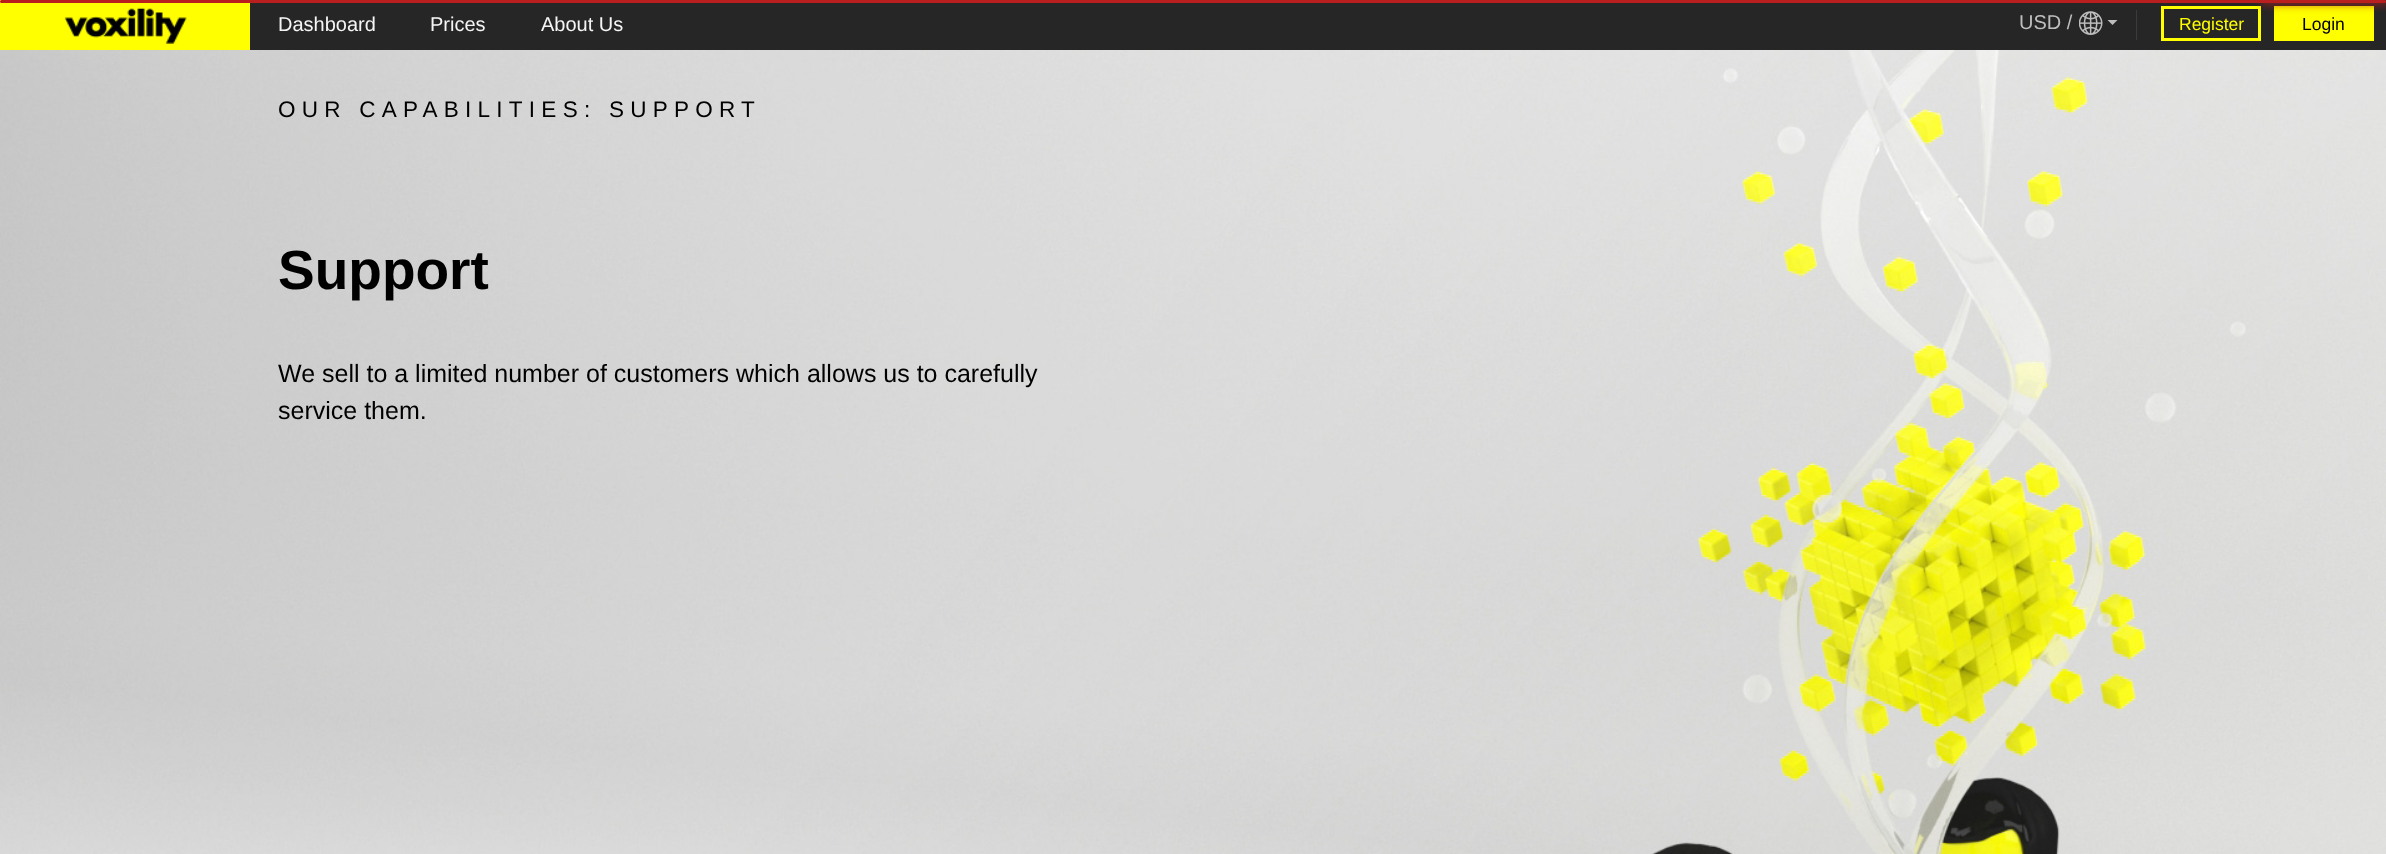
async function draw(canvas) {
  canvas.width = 2386;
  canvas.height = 854;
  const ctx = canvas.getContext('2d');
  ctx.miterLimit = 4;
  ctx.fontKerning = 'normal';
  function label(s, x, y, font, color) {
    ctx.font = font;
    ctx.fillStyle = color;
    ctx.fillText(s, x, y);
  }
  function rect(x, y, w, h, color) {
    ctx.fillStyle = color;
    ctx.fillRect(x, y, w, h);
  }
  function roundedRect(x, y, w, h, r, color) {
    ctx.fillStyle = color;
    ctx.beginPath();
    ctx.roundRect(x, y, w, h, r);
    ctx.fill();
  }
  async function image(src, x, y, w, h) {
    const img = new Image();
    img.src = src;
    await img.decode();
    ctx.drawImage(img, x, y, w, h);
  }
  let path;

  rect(0, 0, 2386, 854, '#fff');
  await image('assets/img1.png', 0, 50, 2386, 804);
  await image('assets/img2.png', 0, 0, 250, 50);
  rect(250, 0, 2136, 50, '#262626');
  roundedRect(0, 0, 2386, 3, 1.5, '#b91f1f');
  ctx.strokeStyle = '#ff0';
  ctx.lineWidth = 3;
  ctx.strokeRect(2162.5, 7.5, 97, 32);
  rect(2274, 6, 100, 35, '#ff0');
  ctx.save();
  ctx.beginPath();
  ctx.rect(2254, 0, 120, 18);
  ctx.clip();
  path = new Path2D('M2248 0H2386V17H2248ZM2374 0C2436 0 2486 .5 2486 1C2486 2 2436 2.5 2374 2.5C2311.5 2.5 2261 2 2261 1C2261 .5 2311.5 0 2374 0Z');
  ctx.clip(path, 'evenodd');
  ctx.fillStyle = '#b91f1f';
  ctx.filter = 'blur(4px)';
  ctx.beginPath();
  ctx.roundRect(2261, -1, 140, 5, 2.5);
  ctx.fill();
  ctx.filter = 'none';
  ctx.restore();
  ctx.save();
  ctx.beginPath();
  ctx.rect(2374, 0, 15, 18);
  ctx.clip();
  path = new Path2D('M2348 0H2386V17H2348ZM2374 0C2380.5 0 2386 .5 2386 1C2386 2 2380.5 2.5 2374 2.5C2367 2.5 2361 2 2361 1C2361 .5 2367 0 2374 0Z');
  ctx.clip(path, 'evenodd');
  ctx.fillStyle = '#b91f1f';
  ctx.filter = 'blur(4px)';
  ctx.beginPath();
  ctx.roundRect(2361, -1, 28, 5, 2.5);
  ctx.fill();
  ctx.filter = 'none';
  ctx.restore();
  label('Dashboard', 278, 31, '20px Liberation Sans', '#f5f5f5');
  label('Prices', 430, 31, '20px Liberation Sans', '#f5f5f5');
  label('About Us', 541, 31, '20px Liberation Sans', '#f5f5f5');
  label('USD /', 2019, 29, '20px Liberation Sans', '#bebebe');
  await image('assets/img3.png', 2079, 11, 24, 24);
  path = new Path2D('M2107.5 20H2117.5L2112.5 25Z');
  ctx.fill(path);
  rect(2136, 10, 1, 30, '#3b3b3b');
  label('Register', 2179, 30, '17.5px Liberation Sans', '#ff0');
  label('Login', 2302, 30, '17.5px Liberation Sans', '#000');
  ctx.letterSpacing = '6.25px';
  label('OUR CAPABILITIES: SUPPORT', 278, 117, '22.5px Liberation Sans', '#000');
  ctx.letterSpacing = '0px';
  label('Support', 278, 289, 'bold 55px Liberation Sans', '#000');
  label('We sell to a limited number of customers which allows us to carefully', 278, 382, '25px Liberation Sans', '#000');
  label('service them.', 278, 419, '25px Liberation Sans', '#000');
}

draw(document.querySelector('canvas'));
